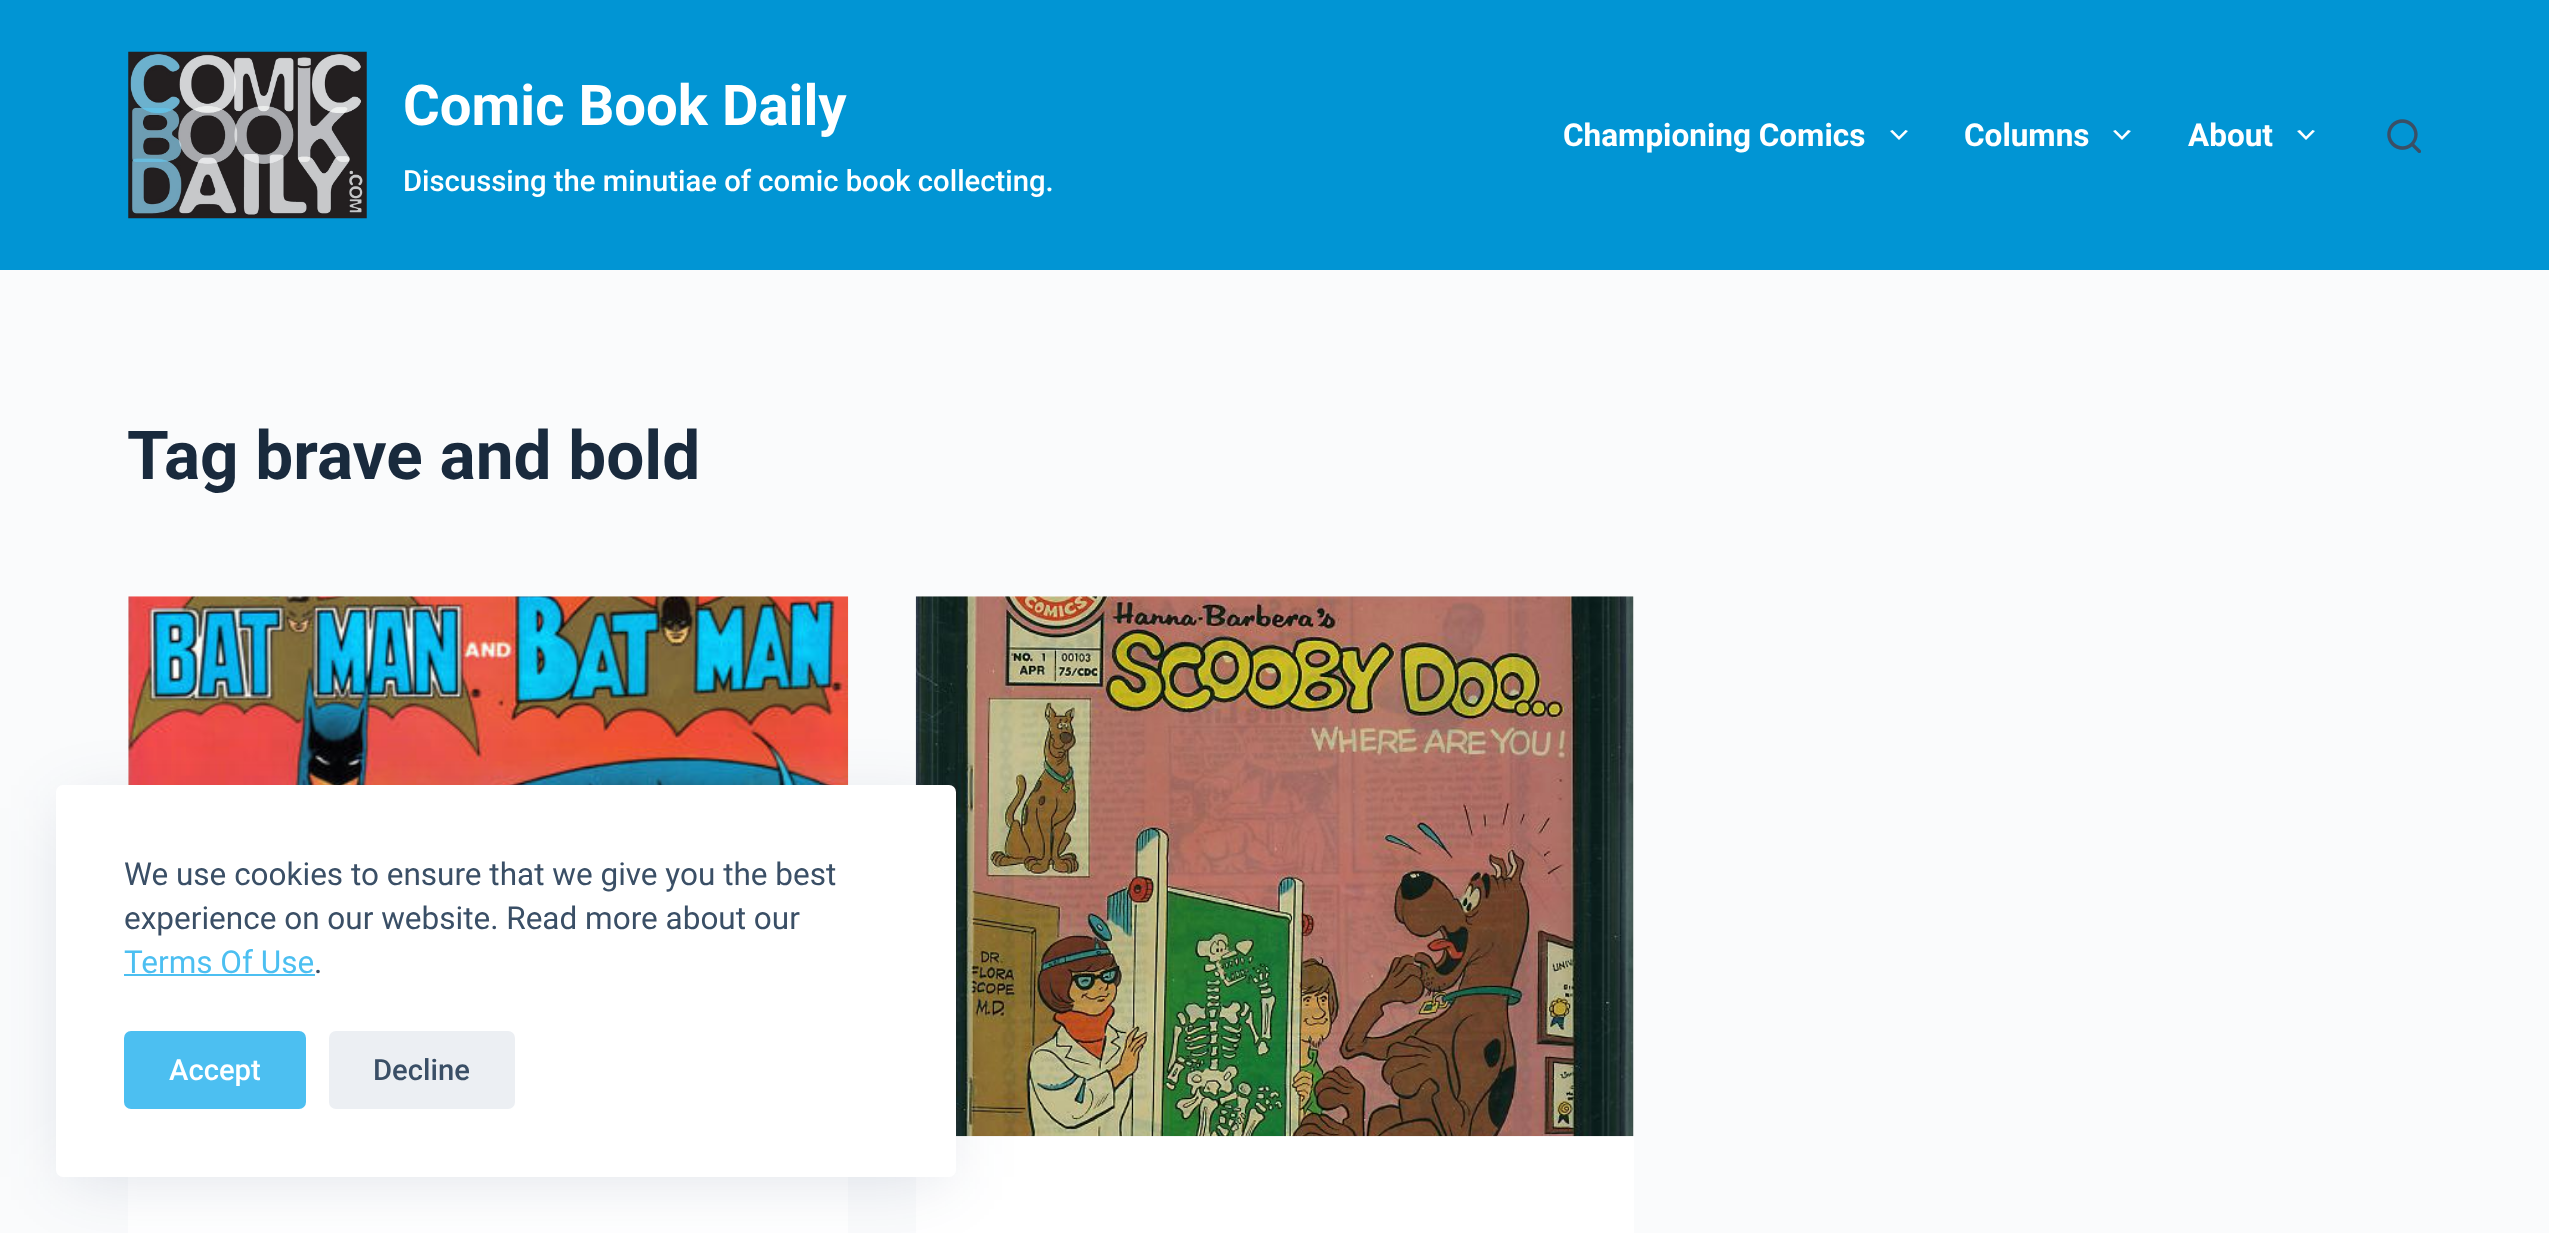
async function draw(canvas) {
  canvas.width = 2549;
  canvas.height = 1233;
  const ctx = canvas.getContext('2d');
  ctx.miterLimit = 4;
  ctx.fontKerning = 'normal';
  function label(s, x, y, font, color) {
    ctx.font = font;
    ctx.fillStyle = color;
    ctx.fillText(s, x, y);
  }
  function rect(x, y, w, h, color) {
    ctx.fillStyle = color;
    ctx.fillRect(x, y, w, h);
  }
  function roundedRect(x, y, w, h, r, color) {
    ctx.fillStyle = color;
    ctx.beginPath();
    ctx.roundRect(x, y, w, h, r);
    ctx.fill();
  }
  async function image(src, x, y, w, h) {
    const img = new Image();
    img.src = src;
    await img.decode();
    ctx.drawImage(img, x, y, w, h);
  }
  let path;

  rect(0, 0, 2549, 1233, '#fafbfc');
  rect(0, 0, 2549, 270, '#0195d4');
  await image('assets/img1.png', 128, 51, 239, 168);
  label('Comic Book Daily', 403, 125, 'bold 56.25px Roboto', '#fff');
  label('Discussing the minutiae of comic book collecting.', 403, 191, '500 29.25px Roboto', '#fff');
  label('Championing Comics', 1563, 146, 'bold 31.5px Roboto', '#fff');
  path = new Path2D('M1892.5 130L1899 136.5L1905.5 130L1908 131L1899 140L1890 131Z');
  ctx.fill(path);
  label('Columns', 1964, 146, 'bold 31.5px Roboto', '#fff');
  path = new Path2D('M2115.5 130L2122 136.5L2128 130L2131 131L2122 140L2113 131Z');
  ctx.fill(path);
  label('About', 2188, 146, 'bold 31.5px Roboto', '#fff');
  path = new Path2D('M2300 130L2306 136.5L2312.5 130L2315 131L2306 140L2297 131Z');
  ctx.fill(path);
  await image('assets/img2.png', 2387, 119, 34, 34);
  label('Tag brave and bold', 127, 479, 'bold 67.5px Roboto', '#192a3d');
  rect(128, 596, 720, 637, '#fff');
  await image('assets/img3.png', 128, 596, 721, 189);
  rect(916, 596, 718, 637, '#fff');
  await image('assets/img4.png', 915, 596, 719, 541);
  ctx.fillStyle = '#22386526';
  ctx.filter = 'blur(34px)';
  ctx.beginPath();
  ctx.rect(68, 808, 877, 369);
  ctx.fill();
  ctx.filter = 'none';
  roundedRect(56, 785, 900, 392, 7, '#fff');
  label('We use cookies to ensure that we give you the best', 124, 885, '31.5px Roboto', '#3a4f66');
  label('experience on our website. Read more about our', 124, 929, '31.5px Roboto', '#3a4f66');
  label('Terms Of Use', 124, 973, '31.5px Roboto', '#4cbff1');
  rect(124, 974, 191, 2, '#4cbff1');
  label('.', 314, 973, '31.5px Roboto', '#3a4f66');
  roundedRect(124, 1031, 182, 78, 7, '#4cbff1');
  label('Accept', 169, 1080, '500 29.25px Roboto', '#fff');
  roundedRect(329, 1031, 186, 78, 7, '#eceff3');
  label('Decline', 373, 1080, '500 29.25px Roboto', '#3a4f66');
}

draw(document.querySelector('canvas'));
